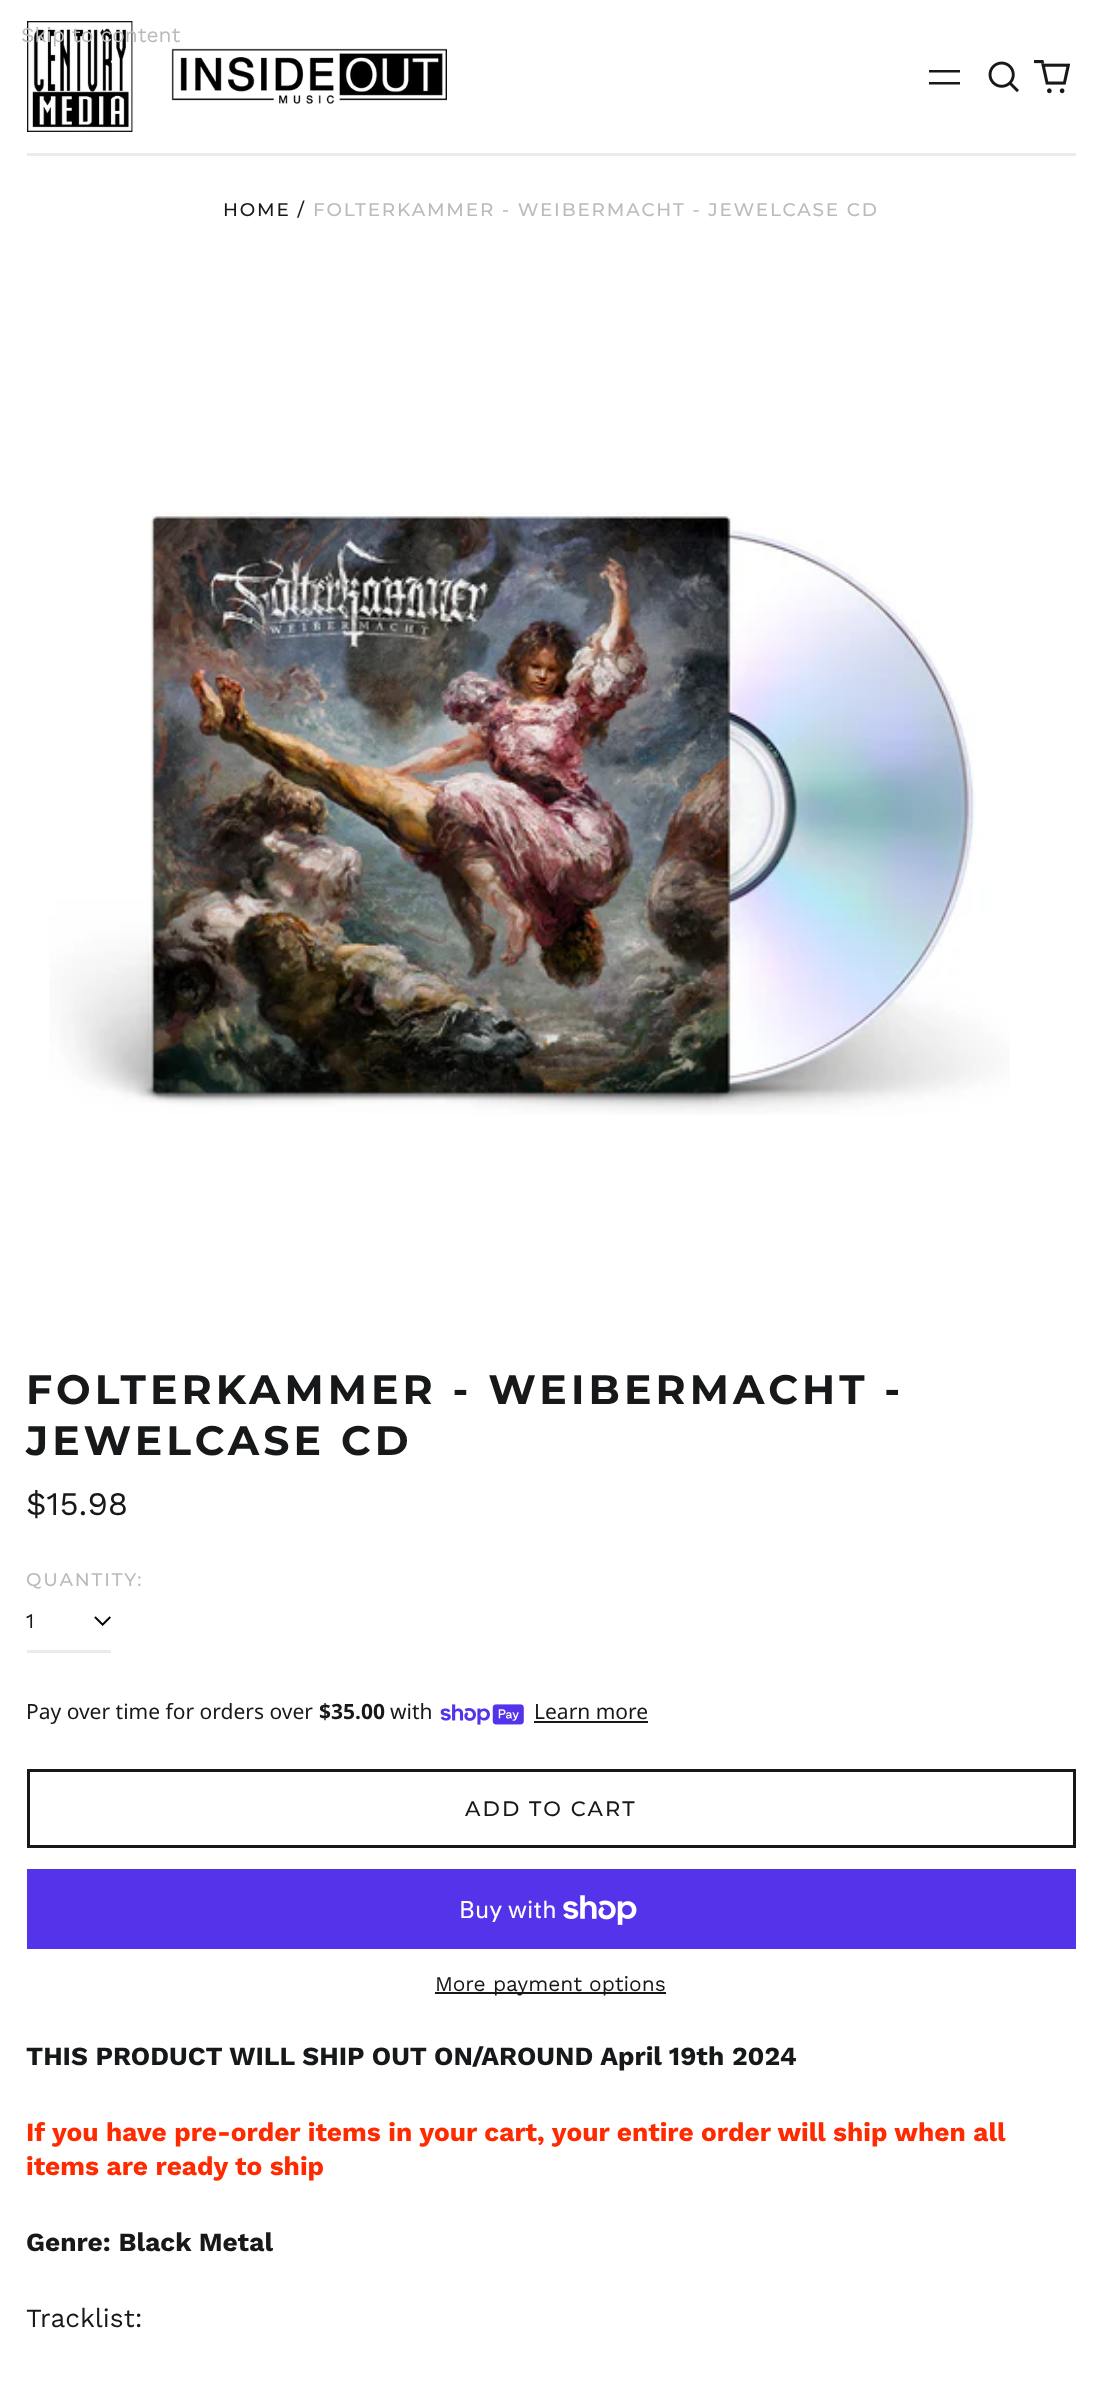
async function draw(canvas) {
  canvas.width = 1100;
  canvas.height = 2383;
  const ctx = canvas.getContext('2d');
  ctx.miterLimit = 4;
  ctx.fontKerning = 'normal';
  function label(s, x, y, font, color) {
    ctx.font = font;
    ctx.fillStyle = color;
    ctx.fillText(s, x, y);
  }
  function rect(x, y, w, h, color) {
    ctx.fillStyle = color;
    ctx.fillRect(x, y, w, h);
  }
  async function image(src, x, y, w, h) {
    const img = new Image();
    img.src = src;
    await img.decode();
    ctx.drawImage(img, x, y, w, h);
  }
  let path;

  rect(0, 0, 1100, 2383, '#fff');
  rect(27, 153, 1049, 3, '#ebebeb');
  await image('assets/img1.png', 27, 21, 420, 111);
  ctx.save();
  ctx.beginPath();
  ctx.rect(929, 62, 31, 31);
  ctx.clip();
  ctx.fillStyle = '#161819';
  path = new Path2D('M960 82V84.5H928.5V82ZM960 70V72.5H928.5V70Z');
  ctx.fill(path, 'evenodd');
  ctx.restore();
  await image('assets/img2.png', 988, 61, 31, 32);
  await image('assets/img3.png', 1034, 60, 36, 34);
  label('Skip to content', 21, 42, '21px Work Sans', '#bbb');
  ctx.letterSpacing = '1.85px';
  label('HOME /', 223, 216, '500 18.4px Montserrat', '#161819');
  label('FOLTERKAMMER - WEIBERMACHT - JEWELCASE CD', 313, 216, '500 18.4px Montserrat', '#bbb');
  await image('assets/img4.png', 49, 512, 961, 603);
  ctx.letterSpacing = '4.1px';
  label('FOLTERKAMMER - WEIBERMACHT -', 26, 1404, 'bold 41px Montserrat', '#161819');
  label('JEWELCASE CD', 26, 1455, 'bold 41px Montserrat', '#161819');
  ctx.letterSpacing = '0px';
  label('$15.98', 26, 1515, '33px Work Sans', '#161819');
  ctx.letterSpacing = '1.85px';
  label('QUANTITY:', 26, 1586, '500 18.4px Montserrat', '#bbb');
  await image('assets/img5.png', 94, 1616, 17, 10);
  rect(27, 1650, 84, 3, '#ebebeb');
  ctx.letterSpacing = '0px';
  label('1', 26, 1628, '21px Work Sans', '#161819');
  label('Pay over time for orders over', 26, 1719, '21px Noto Sans', '#161819');
  label('$35.00', 319, 1719, 'bold 21px Noto Sans', '#161819');
  label('with', 390, 1719, '21px Noto Sans', '#161819');
  await image('assets/img6.png', 440, 1704, 84, 21);
  label('Learn more', 534, 1719, '21px Noto Sans', '#161819');
  rect(534, 1721, 114, 2, '#161819');
  ctx.strokeStyle = '#161819';
  ctx.lineWidth = 3;
  ctx.strokeRect(28.5, 1770.5, 1046, 76);
  ctx.letterSpacing = '2.1px';
  label('ADD TO CART', 465, 1816, '500 21px Montserrat', '#161819');
  rect(27, 1869, 1049, 80, '#5433eb');
  ctx.letterSpacing = '0px';
  label('Buy with', 459, 1918, '24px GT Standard', '#fff');
  await image('assets/img7.png', 563, 1895, 74, 30);
  rect(435, 1992, 231, 2, '#161819');
  label('More payment options', 435, 1991, '21px Work Sans', '#161819');
  label('THIS PRODUCT WILL SHIP OUT ON/AROUND April 19th 2024', 26, 2065, 'bold 26.25px Work Sans', '#161819');
  label('If you have pre-order items in your cart, your entire order will ship when all', 26, 2141, 'bold 26.25px Work Sans', '#ff2a00');
  label('items are ready to ship', 26, 2175, 'bold 26.25px Work Sans', '#ff2a00');
  label('Genre: Black Metal', 26, 2251, 'bold 26.25px Work Sans', '#161819');
  label('Tracklist:', 26, 2327, '26.25px Work Sans', '#161819');
}

draw(document.querySelector('canvas'));
